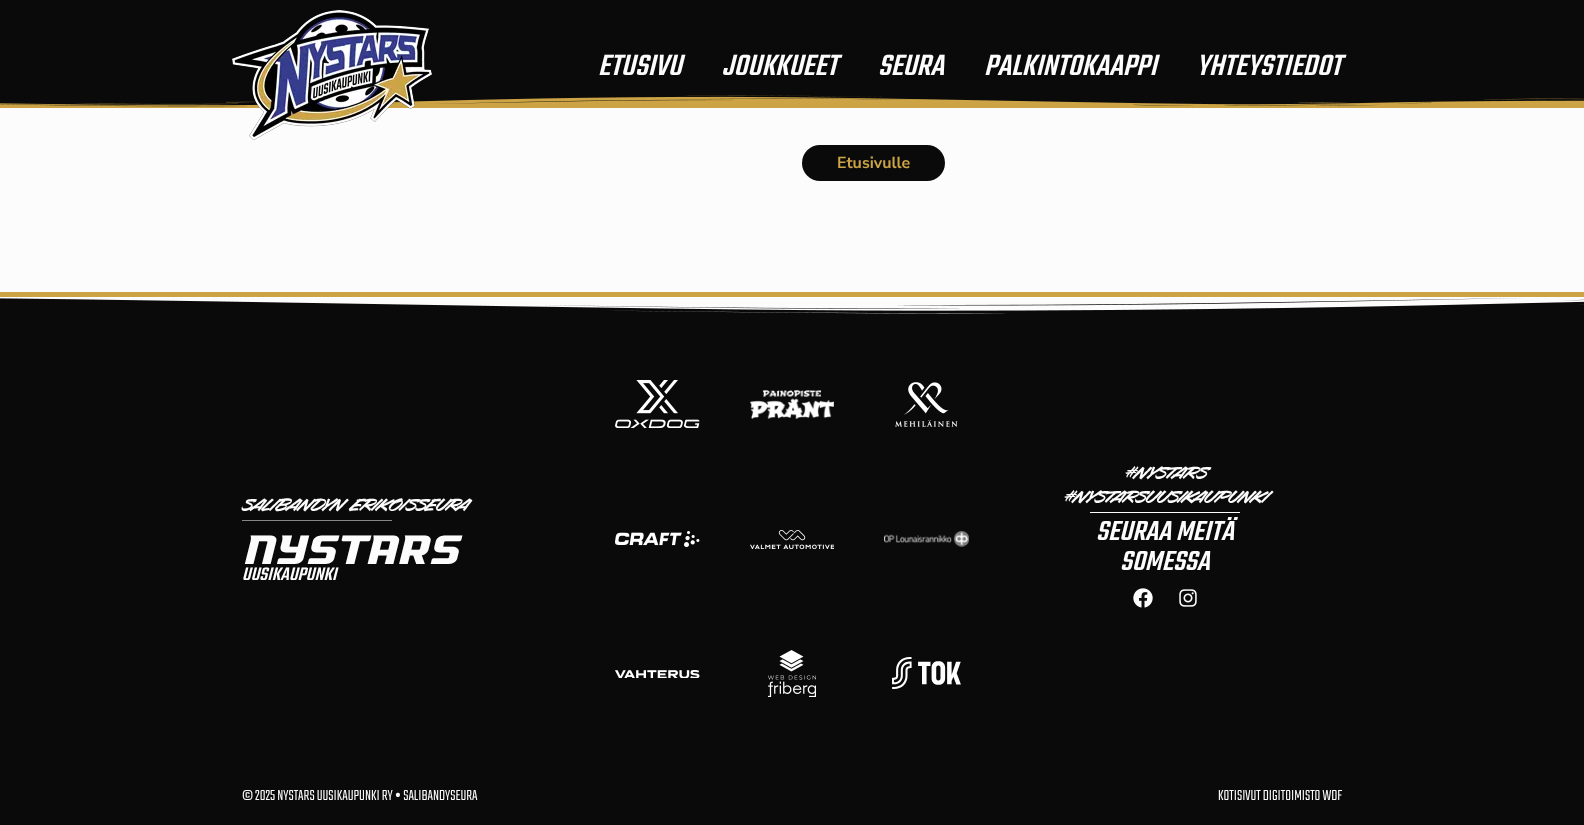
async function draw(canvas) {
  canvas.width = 1584;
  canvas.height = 825;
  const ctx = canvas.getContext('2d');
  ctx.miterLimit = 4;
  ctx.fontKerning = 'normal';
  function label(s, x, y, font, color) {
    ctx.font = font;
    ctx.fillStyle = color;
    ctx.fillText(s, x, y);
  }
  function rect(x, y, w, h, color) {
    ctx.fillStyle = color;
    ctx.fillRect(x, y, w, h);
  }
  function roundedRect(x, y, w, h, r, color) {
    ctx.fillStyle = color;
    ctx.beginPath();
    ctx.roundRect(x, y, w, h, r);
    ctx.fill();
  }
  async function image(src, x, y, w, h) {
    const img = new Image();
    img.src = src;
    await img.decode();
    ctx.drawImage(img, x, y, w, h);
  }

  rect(0, 0, 1584, 825, '#fcfcfc');
  rect(0, 0, 1584, 107, '#0a0a0a');
  await image('assets/img2.png', 0, 95, 1584, 13);
  await image('assets/img1.png', 232, 10, 200, 130);
  label('ETUSIVU', 598, 75, 'italic 500 32px Teko', '#fcfcfc');
  label('JOUKKUEET', 722, 75, 'italic 500 32px Teko', '#fcfcfc');
  label('SEURA', 878, 75, 'italic 500 32px Teko', '#fcfcfc');
  label('PALKINTOKAAPPI', 984, 75, 'italic 500 32px Teko', '#fcfcfc');
  label('YHTEYSTIEDOT', 1196, 75, 'italic 500 32px Teko', '#fcfcfc');
  roundedRect(802, 145, 143, 36, 18, '#0a0a0a');
  label('Etusivulle', 837, 168, 'bold 16px Nunito Sans', '#cca445');
  rect(0, 292, 1584, 5, '#cca445');
  rect(0, 298, 1584, 527, '#0a0a0a');
  await image('assets/img3.png', 0, 297, 1584, 17);
  label('SALIBANDYN ERIKOISSEURA', 242, 511, 'italic 24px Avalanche', '#fcfcfc');
  rect(242, 520, 150, 1, '#868686');
  label('NYSTARS', 242, 564, 'italic bold 40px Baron', '#fcfcfc');
  label('UUSIKAUPUNKI', 242, 580, 'italic 500 20px Teko', '#fcfcfc');
  await image('assets/img4.png', 615, 380, 85, 48);
  await image('assets/img5.png', 750, 390, 84, 29);
  await image('assets/img6.png', 895, 382, 63, 45);
  await image('assets/img7.png', 615, 531, 85, 16);
  await image('assets/img8.png', 750, 530, 84, 19);
  await image('assets/img9.png', 884, 530, 85, 17);
  await image('assets/img10.png', 615, 670, 85, 8);
  await image('assets/img11.png', 768, 650, 48, 47);
  await image('assets/img12.png', 892, 657, 69, 32);
  label('#NYSTARS', 1124, 479, 'italic 24px Avalanche', '#fcfcfc');
  label('#NYSTARSUUSIKAUPUNKI', 1063, 503, 'italic 24px Avalanche', '#fcfcfc');
  rect(1090, 512, 150, 1, '#fcfcfc');
  label('SEURAA MEITÄ', 1096, 540, 'italic 500 30px Teko', '#fcfcfc');
  label('SOMESSA', 1120, 570, 'italic 500 30px Teko', '#fcfcfc');
  await image('assets/img13.png', 1133, 588, 20, 20);
  await image('assets/img14.png', 1179, 589, 18, 18);
  label('© 2025 NYSTARS UUSIKAUPUNKI RY • SALIBANDYSEURA', 242, 800, '300 16px Teko', '#fcfcfc');
  label('KOTISIVUT DIGITOIMISTO WDF', 1218, 800, '300 16px Teko', '#fcfcfc');
}

draw(document.querySelector('canvas'));
